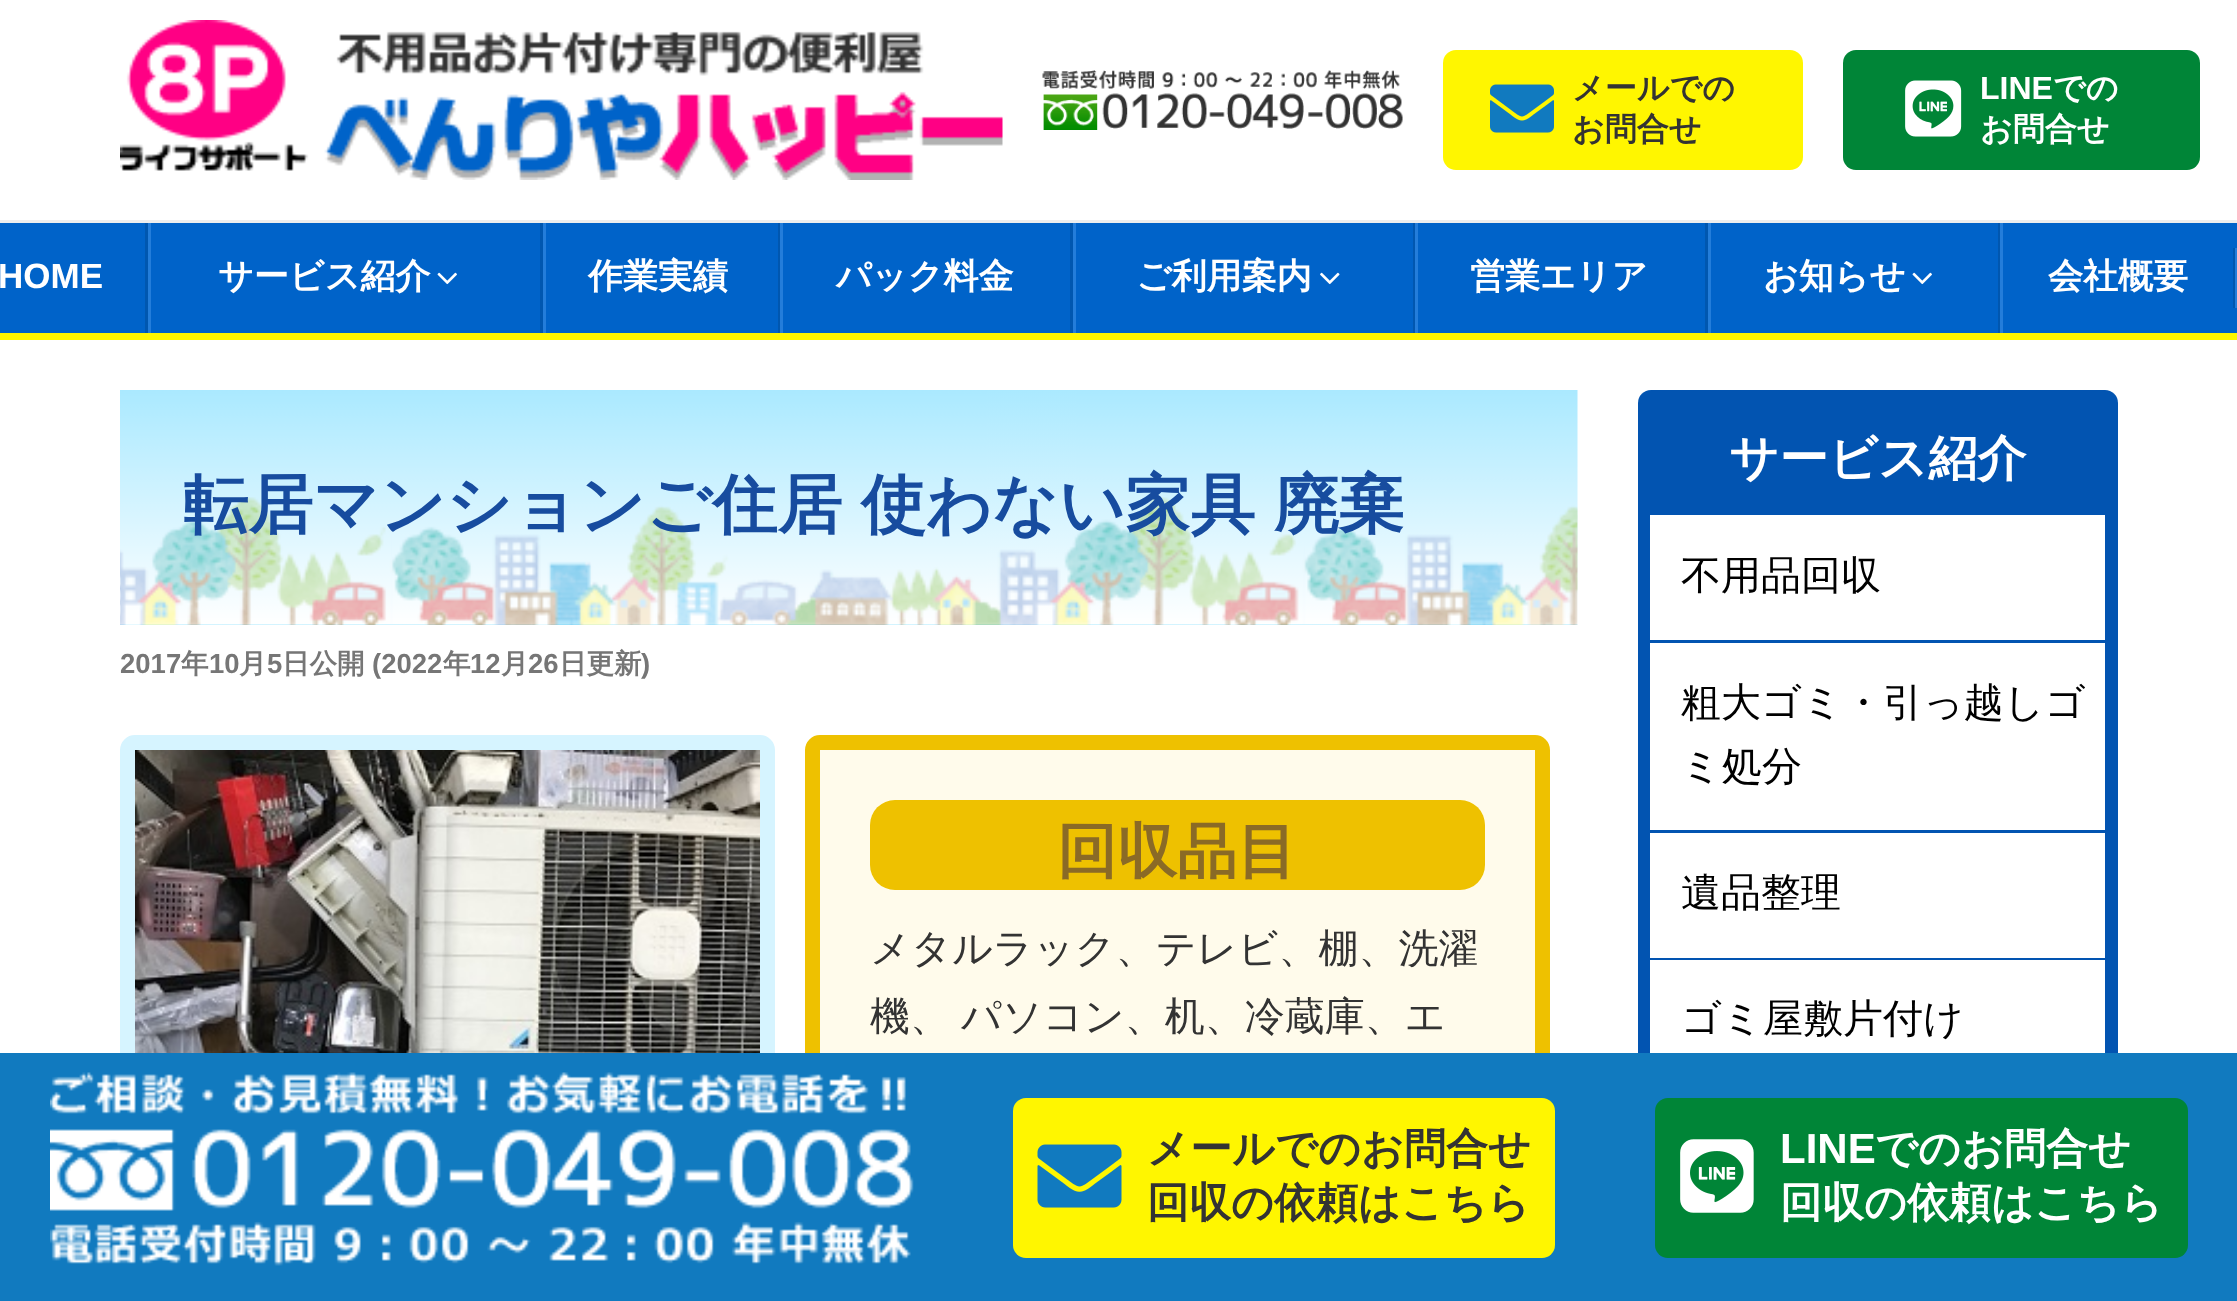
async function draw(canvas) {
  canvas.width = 2237;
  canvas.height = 1301;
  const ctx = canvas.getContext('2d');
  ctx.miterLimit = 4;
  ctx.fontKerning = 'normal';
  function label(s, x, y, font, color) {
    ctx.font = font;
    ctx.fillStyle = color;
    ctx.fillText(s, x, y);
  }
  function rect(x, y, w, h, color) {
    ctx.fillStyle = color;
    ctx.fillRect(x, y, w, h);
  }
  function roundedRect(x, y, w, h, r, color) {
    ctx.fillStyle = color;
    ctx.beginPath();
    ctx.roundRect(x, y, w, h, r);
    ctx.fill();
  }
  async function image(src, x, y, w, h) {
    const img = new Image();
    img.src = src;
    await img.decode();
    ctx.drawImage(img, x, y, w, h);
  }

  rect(0, 0, 2237, 1301, '#fff');
  await image('assets/img1.png', 120, 20, 883, 160);
  await image('assets/img2.png', 1042, 70, 361, 60);
  roundedRect(1443, 50, 360, 120, 13, '#fff600');
  await image('assets/img3.png', 1490, 84, 64, 49);
  label('メールでの', 1572, 99, 'bold 32px WenQuanYi Zen Hei', '#333');
  label('お問合せ', 1572, 140, 'bold 32px WenQuanYi Zen Hei', '#333');
  roundedRect(1843, 50, 357, 120, 13, '#008537');
  await image('assets/img4.png', 1905, 80, 57, 57);
  label('LINE', 1980, 99, 'bold 32px Liberation Sans', '#fff');
  label('での', 2053, 99, 'bold 32px WenQuanYi Zen Hei', '#fff');
  label('お問合せ', 1980, 140, 'bold 32px WenQuanYi Zen Hei', '#fff');
  rect(0, 223, 2237, 110, '#0063c9');
  rect(0, 220, 2237, 3, '#eee');
  rect(0, 333, 2237, 7, '#fff600');
  label('HOME', -2, 288, 'bold 35px Liberation Sans', '#fff');
  rect(145, 223, 3, 110, '#0057b0');
  rect(148, 223, 3, 110, '#237dda');
  label('サービス紹介', 218, 288, 'bold 35px WenQuanYi Zen Hei', '#fff');
  await image('assets/img5.png', 437, 272, 20, 13);
  rect(540, 223, 3, 110, '#0057b0');
  rect(543, 223, 3, 110, '#237dda');
  label('作業実績', 588, 288, 'bold 35px WenQuanYi Zen Hei', '#fff');
  rect(778, 223, 2, 110, '#0057b0');
  rect(780, 223, 3, 110, '#237dda');
  label('パック料金', 836, 288, 'bold 35px WenQuanYi Zen Hei', '#fff');
  rect(1070, 223, 3, 110, '#0057b0');
  rect(1073, 223, 3, 110, '#237dda');
  label('ご利用案内', 1136, 288, 'bold 35px WenQuanYi Zen Hei', '#fff');
  await image('assets/img6.png', 1320, 272, 20, 13);
  rect(1413, 223, 2, 110, '#0057b0');
  rect(1415, 223, 3, 110, '#237dda');
  label('営業エリア', 1470, 288, 'bold 35px WenQuanYi Zen Hei', '#fff');
  rect(1705, 223, 3, 110, '#0057b0');
  rect(1708, 223, 3, 110, '#237dda');
  label('お知らせ', 1763, 288, 'bold 35px WenQuanYi Zen Hei', '#fff');
  await image('assets/img5.png', 1912, 272, 20, 13);
  rect(1998, 223, 2, 110, '#0057b0');
  rect(2000, 223, 3, 110, '#237dda');
  label('会社概要', 2048, 288, 'bold 35px WenQuanYi Zen Hei', '#fff');
  rect(2233, 248, 2, 60, '#0057b0');
  rect(2235, 248, 2, 60, '#237dda');
  await image('assets/img7.png', 120, 390, 1458, 235);
  ctx.wordSpacing = '-1px';
  label('転居マンションご住居 使わない家具 廃棄', 183, 527, 'bold 65px WenQuanYi Zen Hei', '#174c9f');
  ctx.wordSpacing = '0px';
  label('2017', 120, 673, 'bold 27.5px Liberation Sans', '#767676');
  label('年', 181, 673, 'bold 27.5px WenQuanYi Zen Hei', '#767676');
  label('10', 209, 673, 'bold 27.5px Liberation Sans', '#767676');
  label('月', 239, 673, 'bold 27.5px WenQuanYi Zen Hei', '#767676');
  label('5', 267, 673, 'bold 27.5px Liberation Sans', '#767676');
  label('日公開', 282, 673, 'bold 27.5px WenQuanYi Zen Hei', '#767676');
  label('(2022', 372, 673, 'bold 27.5px Liberation Sans', '#767676');
  label('年', 443, 673, 'bold 27.5px WenQuanYi Zen Hei', '#767676');
  label('12', 470, 673, 'bold 27.5px Liberation Sans', '#767676');
  label('月', 501, 673, 'bold 27.5px WenQuanYi Zen Hei', '#767676');
  label('26', 528, 673, 'bold 27.5px Liberation Sans', '#767676');
  label('日更新', 559, 673, 'bold 27.5px WenQuanYi Zen Hei', '#767676');
  label(')', 641, 673, 'bold 27.5px Liberation Sans', '#767676');
  ctx.beginPath();
  ctx.roundRect(127.5, 742.5, 640, 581, 7.5);
  ctx.strokeStyle = '#d6f4ff';
  ctx.lineWidth = 15;
  ctx.stroke();
  await image('assets/img8.png', 135, 750, 625, 303);
  ctx.fillStyle = '#fffbeb';
  ctx.beginPath();
  ctx.roundRect(812.5, 742.5, 730, 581, 7.5);
  ctx.fill();
  ctx.strokeStyle = '#eec100';
  ctx.stroke();
  roundedRect(870, 800, 615, 90, 25, '#eec100');
  label('回収品目', 1057, 872, 'bold 60px WenQuanYi Zen Hei', '#8a6a26');
  label('メタルラック、テレビ、棚、洗濯', 870, 962, '500 40px WenQuanYi Zen Hei', '#333');
  ctx.wordSpacing = '-1px';
  label('機、 パソコン、机、冷蔵庫、エ', 870, 1030, '500 40px WenQuanYi Zen Hei', '#333');
  ctx.fillStyle = '#0254b1';
  ctx.beginPath();
  ctx.roundRect(1638, 390, 480, 125, [13, 13, 0, 0]);
  ctx.fill();
  ctx.wordSpacing = '0px';
  label('サービス紹介', 1729, 475, 'bold 49px WenQuanYi Zen Hei', '#fff');
  rect(1638, 515, 480, 538, '#0254b1');
  rect(1650, 515, 455, 125, '#fff');
  label('不用品回収', 1681, 589, '500 40px WenQuanYi Zen Hei', '#000');
  rect(1650, 643, 455, 187, '#fff');
  label('粗大ゴミ・引っ越しゴ', 1681, 716, '500 40px WenQuanYi Zen Hei', '#000');
  label('ミ処分', 1681, 780, '500 40px WenQuanYi Zen Hei', '#000');
  rect(1650, 833, 455, 125, '#fff');
  label('遺品整理', 1681, 906, '500 40px WenQuanYi Zen Hei', '#000');
  rect(1650, 960, 455, 93, '#fff');
  label('ゴミ屋敷片付け', 1681, 1032, '500 40px WenQuanYi Zen Hei', '#000');
  rect(0, 1053, 2237, 248, '#117abf');
  await image('assets/img9.png', 50, 1072, 864, 194);
  roundedRect(1013, 1098, 542, 160, 13, '#fff600');
  await image('assets/img10.png', 1037, 1144, 85, 64);
  label('メールでのお問合せ', 1147, 1163, 'bold 42px WenQuanYi Zen Hei', '#333');
  label('回収の依頼はこちら', 1147, 1217, 'bold 42px WenQuanYi Zen Hei', '#333');
  roundedRect(1655, 1098, 533, 160, 13, '#008537');
  await image('assets/img11.png', 1680, 1139, 74, 74);
  label('LINE', 1780, 1163, 'bold 42px Liberation Sans', '#fff');
  label('でのお問合せ', 1875, 1163, 'bold 42px WenQuanYi Zen Hei', '#fff');
  label('回収の依頼はこちら', 1780, 1217, 'bold 42px WenQuanYi Zen Hei', '#fff');
}

draw(document.querySelector('canvas'));
